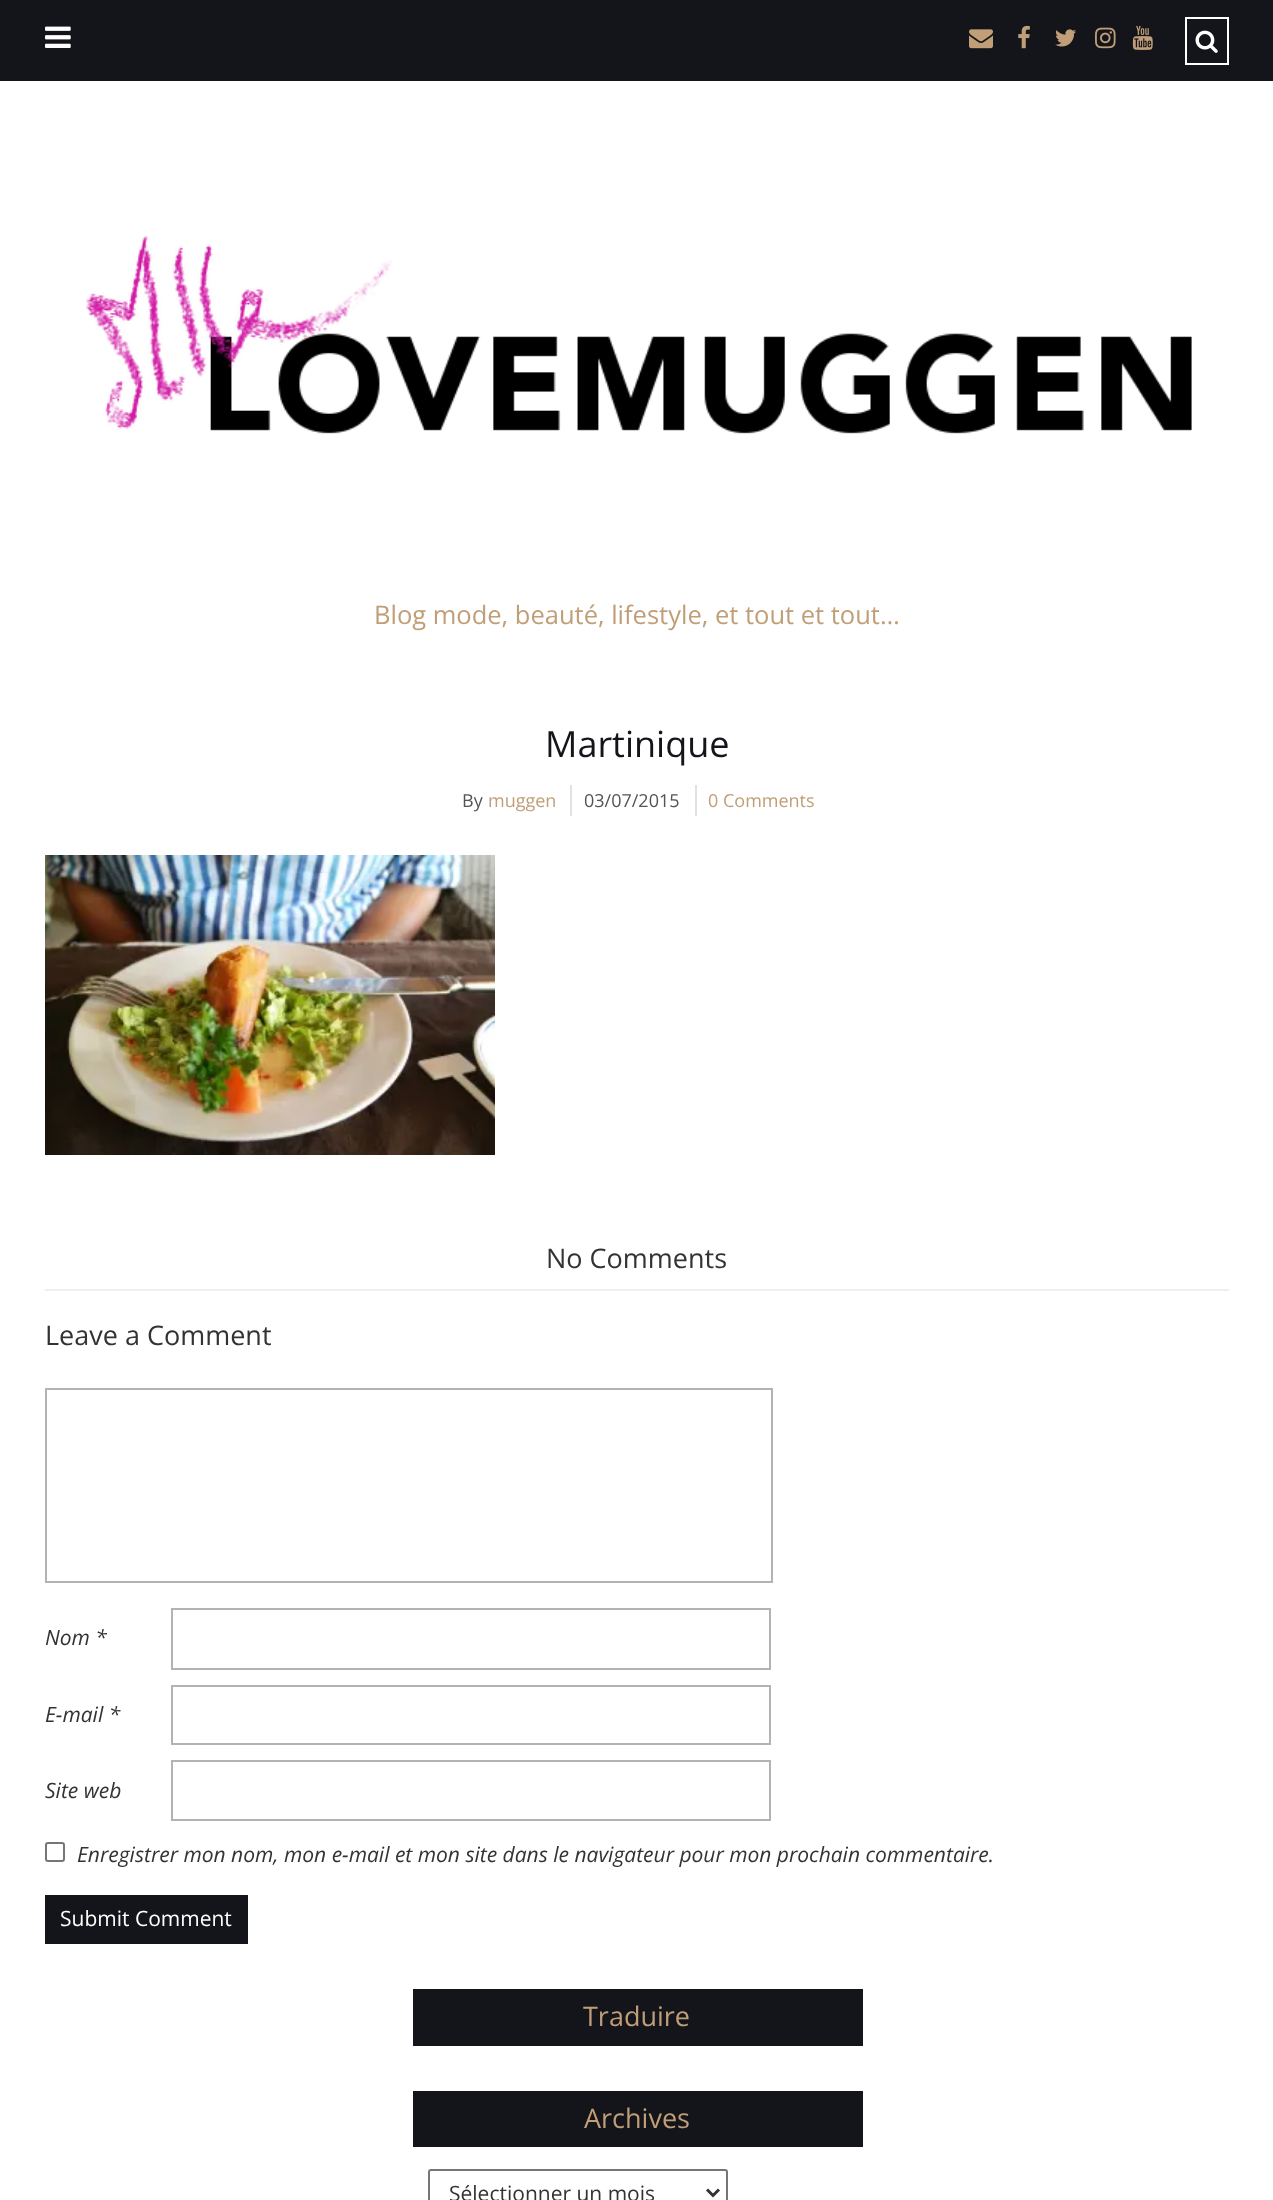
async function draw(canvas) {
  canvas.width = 1273;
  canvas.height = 2200;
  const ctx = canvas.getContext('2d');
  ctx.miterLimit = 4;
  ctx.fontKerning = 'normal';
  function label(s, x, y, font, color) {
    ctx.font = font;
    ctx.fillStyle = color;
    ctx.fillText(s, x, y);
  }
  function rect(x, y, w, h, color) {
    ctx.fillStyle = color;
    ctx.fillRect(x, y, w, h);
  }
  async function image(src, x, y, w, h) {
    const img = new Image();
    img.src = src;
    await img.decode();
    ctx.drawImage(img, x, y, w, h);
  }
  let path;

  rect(0, 0, 1273, 2200, '#fff');
  rect(0, 0, 1273, 81, '#14141b');
  await image('assets/img1.png', 45, 26, 26, 22);
  await image('assets/img2.png', 969, 29, 24, 20);
  await image('assets/img3.png', 1018, 25, 12, 24);
  await image('assets/img4.png', 1055, 29, 21, 18);
  await image('assets/img5.png', 1095, 27, 21, 22);
  await image('assets/img6.png', 1132, 25, 21, 25);
  ctx.strokeStyle = '#fff';
  ctx.lineWidth = 2;
  ctx.strokeRect(1186, 18, 42, 46);
  await image('assets/img7.png', 1195, 30, 23, 23);
  await image('assets/img8.png', 86, 236, 1106, 198);
  label('Blog mode, beauté, lifestyle, et tout et tout…', 374, 624, '25.5px Open Sans', '#c09e77');
  label('Martinique', 545, 757, '36px Open Sans', '#14141b');
  label('By', 462, 807, '18px Open Sans', '#545454');
  label('muggen', 488, 807, '18px Open Sans', '#c09e77');
  rect(570, 785, 2, 31, '#e1e1e1');
  label('03/07/2015', 584, 807, '18px Open Sans', '#545454');
  rect(695, 785, 2, 31, '#e1e1e1');
  label('0 Comments', 708, 807, '18px Open Sans', '#c09e77');
  await image('assets/img9.png', 45, 855, 450, 300);
  rect(45, 1289, 1184, 2, '#efefef');
  label('No Comments', 546, 1268, '27px Open Sans', '#333');
  label('Leave a Comment', 45, 1345, '27px Open Sans', '#333');
  ctx.strokeStyle = '#b3b3b3';
  ctx.strokeRect(46, 1389, 726, 193);
  label('Nom *', 45, 1645, 'italic 21px Open Sans', '#333');
  ctx.strokeRect(172, 1609, 598, 60);
  label('E-mail *', 45, 1722, 'italic 21px Open Sans', '#333');
  ctx.strokeRect(172, 1686, 598, 58);
  label('Site web', 45, 1798, 'italic 21px Open Sans', '#333');
  ctx.strokeRect(172, 1761, 598, 59);
  ctx.beginPath();
  ctx.roundRect(46, 1843, 18, 18, 2);
  ctx.strokeStyle = '#767676';
  ctx.stroke();
  label('Enregistrer mon nom, mon e-mail et mon site dans le navigateur pour mon prochain commentaire.', 77, 1862, 'italic 21px Open Sans', '#333');
  rect(45, 1895, 203, 49, '#14141b');
  label('Submit Comment', 60, 1926, '21px Open Sans', '#fff');
  rect(413, 1989, 450, 57, '#14141b');
  label('Traduire', 583, 2026, '27px Open Sans', '#c09e77');
  rect(413, 2091, 450, 56, '#14141b');
  label('Archives', 584, 2128, '27px Open Sans', '#c09e77');
  ctx.beginPath();
  ctx.roundRect(429, 2170, 298, 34, 2);
  ctx.stroke();
  path = new Path2D('M707 2189.5L713 2195.5L719 2189.5');
  ctx.strokeStyle = '#333';
  ctx.lineWidth = 3;
  ctx.stroke(path);
  label('Sélectionner un mois', 449, 2201, '21px Open Sans', '#333');
}

draw(document.querySelector('canvas'));
